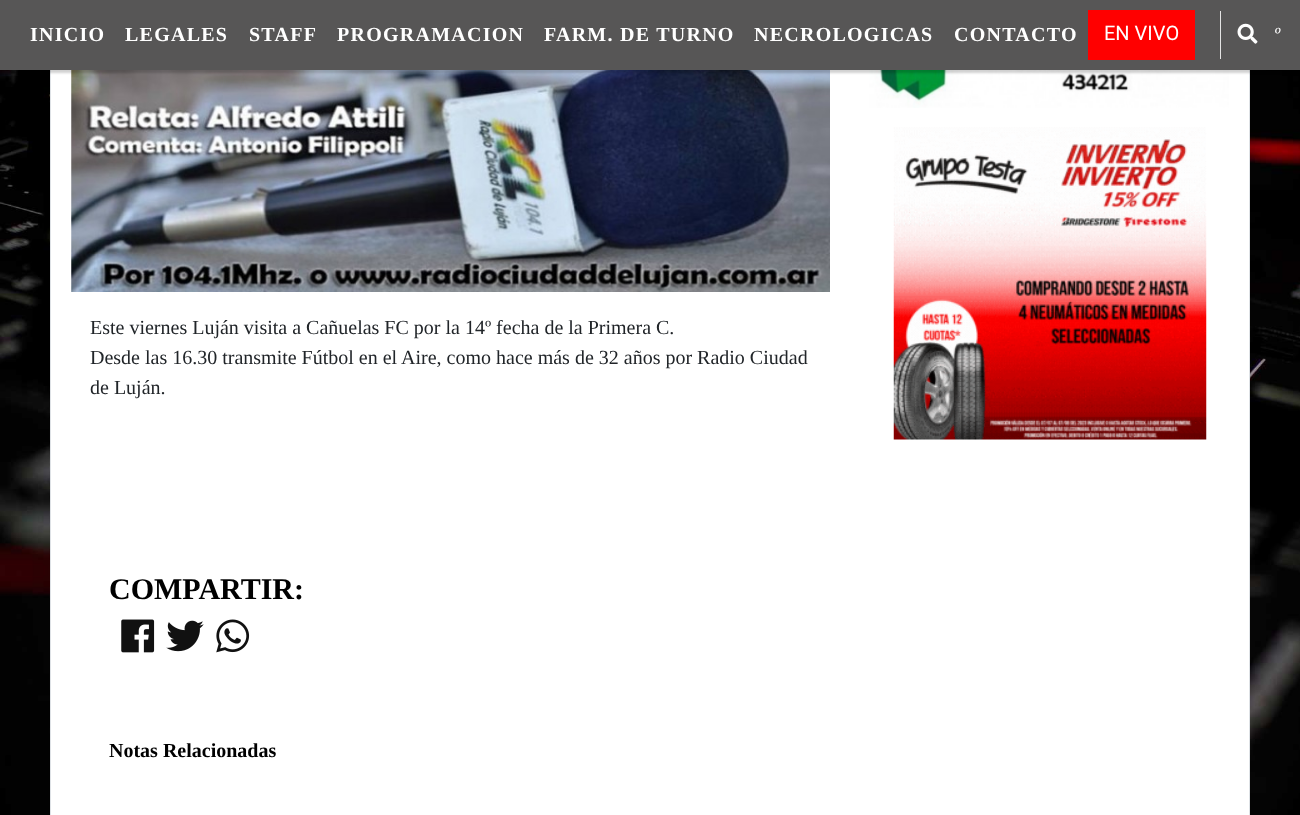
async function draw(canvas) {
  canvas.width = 1300;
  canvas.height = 815;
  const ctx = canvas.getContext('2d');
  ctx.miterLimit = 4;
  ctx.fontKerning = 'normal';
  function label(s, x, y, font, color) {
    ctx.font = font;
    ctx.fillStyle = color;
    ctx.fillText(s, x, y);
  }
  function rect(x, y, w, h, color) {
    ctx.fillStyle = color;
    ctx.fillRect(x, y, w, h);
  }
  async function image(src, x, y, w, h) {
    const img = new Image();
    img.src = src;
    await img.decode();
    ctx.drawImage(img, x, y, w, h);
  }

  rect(0, 0, 1300, 815, '#fff');
  await image('assets/img1.png', 0, 70, 1300, 745);
  rect(51, 70, 1198, 745, '#fff');
  rect(1249, 70, 1, 745, '#dee2e6');
  rect(50, 70, 1, 745, '#dee2e6');
  await image('assets/img3.png', 869, 70, 360, 38);
  await image('assets/img5.png', 71, 70, 759, 222);
  ctx.fillStyle = '#0000002e';
  ctx.filter = 'blur(1px)';
  ctx.beginPath();
  ctx.rect(0, 3, 1300, 70);
  ctx.fill();
  ctx.filter = 'none';
  rect(0, 0, 1300, 70, '#575656');
  ctx.letterSpacing = '1.25px';
  label('INICIO', 30, 41, 'bold 20px Liberation Serif', '#fff');
  label('LEGALES', 125, 41, 'bold 20px Liberation Serif', '#fff');
  label('STAFF', 249, 41, 'bold 20px Liberation Serif', '#fff');
  label('PROGRAMACION', 337, 41, 'bold 20px Liberation Serif', '#fff');
  label('FARM. DE TURNO', 544, 41, 'bold 20px Liberation Serif', '#fff');
  label('NECROLOGICAS', 754, 41, 'bold 20px Liberation Serif', '#fff');
  label('CONTACTO', 954, 41, 'bold 20px Liberation Serif', '#fff');
  rect(1088, 10, 107, 50, '#f00');
  ctx.letterSpacing = '0px';
  label('EN VIVO', 1104, 40, '20px Roboto', '#fff');
  rect(1220, 11, 1, 48, '#e4e4e4');
  await image('assets/img2.png', 1237, 23, 21, 21);
  label('º', 1274, 41, 'italic 20px Liberation Serif', '#fff');
  await image('assets/img4.png', 893, 127, 314, 313);
  label('Este viernes Luján visita a Cañuelas FC por la 14º fecha de la Primera C.', 90, 334, '20px Liberation Serif', '#212529');
  label('Desde las 16.30 transmite Fútbol en el Aire, como hace más de 32 años por Radio Ciudad', 90, 364, '20px Liberation Serif', '#212529');
  label('de Luján.', 90, 394, '20px Liberation Serif', '#212529');
  label('COMPARTIR:', 109, 599, 'bold 30px Liberation Serif', '#000');
  await image('assets/img6.png', 121, 619, 34, 34);
  await image('assets/img7.png', 166, 620, 38, 32);
  await image('assets/img8.png', 216, 619, 34, 34);
  label('Notas Relacionadas', 109, 757, 'bold 20px Liberation Serif', '#000');
}

draw(document.querySelector('canvas'));
